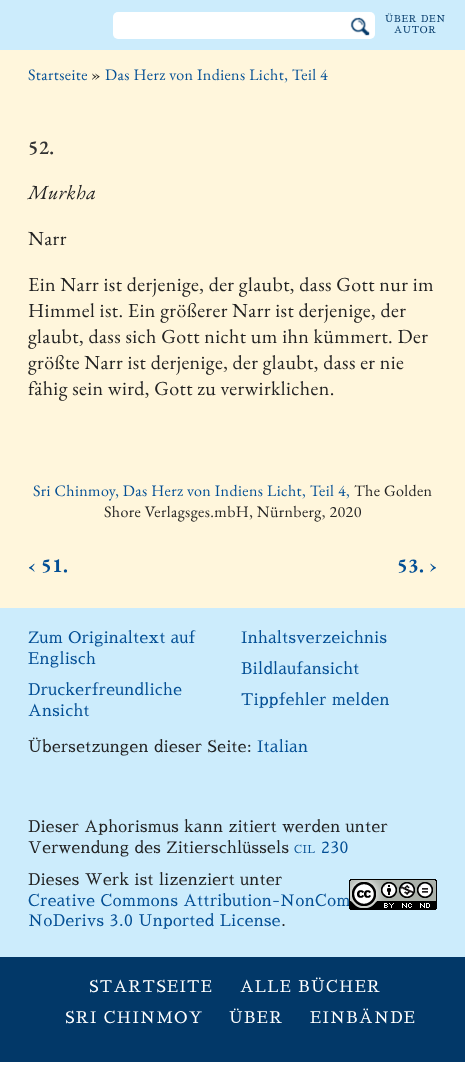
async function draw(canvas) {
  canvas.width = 465;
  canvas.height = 1077;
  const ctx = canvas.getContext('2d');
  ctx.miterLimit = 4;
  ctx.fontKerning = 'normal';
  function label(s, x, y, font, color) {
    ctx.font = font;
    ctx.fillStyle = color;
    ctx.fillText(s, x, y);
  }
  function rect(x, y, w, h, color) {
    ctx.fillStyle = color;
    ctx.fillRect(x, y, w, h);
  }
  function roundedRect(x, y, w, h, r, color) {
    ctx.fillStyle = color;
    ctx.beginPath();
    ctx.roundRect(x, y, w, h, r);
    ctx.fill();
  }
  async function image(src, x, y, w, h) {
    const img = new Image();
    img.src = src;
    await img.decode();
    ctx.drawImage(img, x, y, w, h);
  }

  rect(0, 0, 465, 1077, '#fff');
  rect(0, 50, 465, 558, '#fff6dc');
  rect(0, 0, 465, 50, '#ccecfc');
  roundedRect(113, 12, 262, 27, 5, '#fff');
  await image('assets/img1.png', 350, 17, 20, 19);
  ctx.letterSpacing = '0.75px';
  label('ÜBER DEN', 385, 22, '9.5px Sawarabi Mincho', '#023868');
  label('AUTOR', 394, 33, '9.5px Sawarabi Mincho', '#023868');
  ctx.letterSpacing = '0.4px';
  label('Startseite', 28, 80, '16px EB Garamond', '#034f95');
  label('»', 91, 80, '16px EB Garamond', '#222');
  label('Das Herz von Indiens Licht, Teil 4', 105, 80, '16px EB Garamond', '#034f95');
  label('52.', 28, 154, '600 20px EB Garamond', '#333');
  label('Murkha', 28, 199, 'italic 20px EB Garamond', '#222');
  label('Narr', 28, 245, '20px EB Garamond', '#222');
  label('Ein Narr ist derjenige, der glaubt, dass Gott nur im', 28, 291, '20px EB Garamond', '#222');
  label('Himmel ist. Ein größerer Narr ist derjenige, der', 28, 317, '20px EB Garamond', '#222');
  label('glaubt, dass sich Gott nicht um ihn kümmert. Der', 28, 343, '20px EB Garamond', '#222');
  label('größte Narr ist derjenige, der glaubt, dass er nie', 28, 369, '20px EB Garamond', '#222');
  label('fähig sein wird, Gott zu verwirklichen.', 28, 395, '20px EB Garamond', '#222');
  label('Sri Chinmoy, Das Herz von Indiens Licht, Teil 4,', 33, 496, '16px EB Garamond', '#034f95');
  label('The Golden', 354, 496, '16px EB Garamond', '#222');
  label('Shore Verlagsges.mbH, Nürnberg, 2020', 104, 517, '16px EB Garamond', '#222');
  label('‹ 51.', 28, 572, 'bold 20px EB Garamond', '#034f95');
  label('53. ›', 397, 572, 'bold 20px EB Garamond', '#034f95');
  rect(0, 608, 465, 349, '#ccecfc');
  label('Zum Originaltext auf', 28, 643, '16px Sawarabi Mincho', '#034f95');
  label('Englisch', 28, 664, '16px Sawarabi Mincho', '#034f95');
  label('Inhaltsverzeichnis', 241, 643, '16px Sawarabi Mincho', '#034f95');
  label('Bildlaufansicht', 241, 674, '16px Sawarabi Mincho', '#034f95');
  label('Druckerfreundliche', 28, 695, '16px Sawarabi Mincho', '#034f95');
  label('Ansicht', 28, 716, '16px Sawarabi Mincho', '#034f95');
  label('Tippfehler melden', 241, 705, '16px Sawarabi Mincho', '#034f95');
  label('Übersetzungen dieser Seite:', 28, 752, '16px Sawarabi Mincho', '#222');
  label('Italian', 257, 752, '16px Sawarabi Mincho', '#034f95');
  label('Dieser Aphorismus kann zitiert werden unter', 28, 832, '16px Sawarabi Mincho', '#222');
  label('Verwendung des Zitierschlüssels', 28, 853, '16px Sawarabi Mincho', '#222');
  label('CIL', 294, 853, '11px Sawarabi Mincho', '#034f95');
  label('230', 321, 853, '16px Sawarabi Mincho', '#034f95');
  label('Dieses Werk ist lizenziert unter', 28, 885, '16px Sawarabi Mincho', '#222');
  label('Creative Commons Attribution-NonCom', 28, 906, '16px Sawarabi Mincho', '#034f95');
  await image('assets/img2.png', 349, 879, 88, 31);
  label('NoDerivs 3.0 Unported License', 28, 926, '16px Sawarabi Mincho', '#034f95');
  label('.', 281, 926, '16px Sawarabi Mincho', '#222');
  rect(0, 957, 465, 105, '#023868');
  ctx.letterSpacing = '1.25px';
  label('STARTSEITE', 89, 992, '16px Sawarabi Mincho', '#fff');
  label('ALLE BÜCHER', 240, 992, '16px Sawarabi Mincho', '#fff');
  label('SRI CHINMOY', 65, 1023, '16px Sawarabi Mincho', '#fff');
  label('ÜBER', 229, 1023, '16px Sawarabi Mincho', '#fff');
  label('EINBÄNDE', 310, 1023, '16px Sawarabi Mincho', '#fff');
}

draw(document.querySelector('canvas'));
